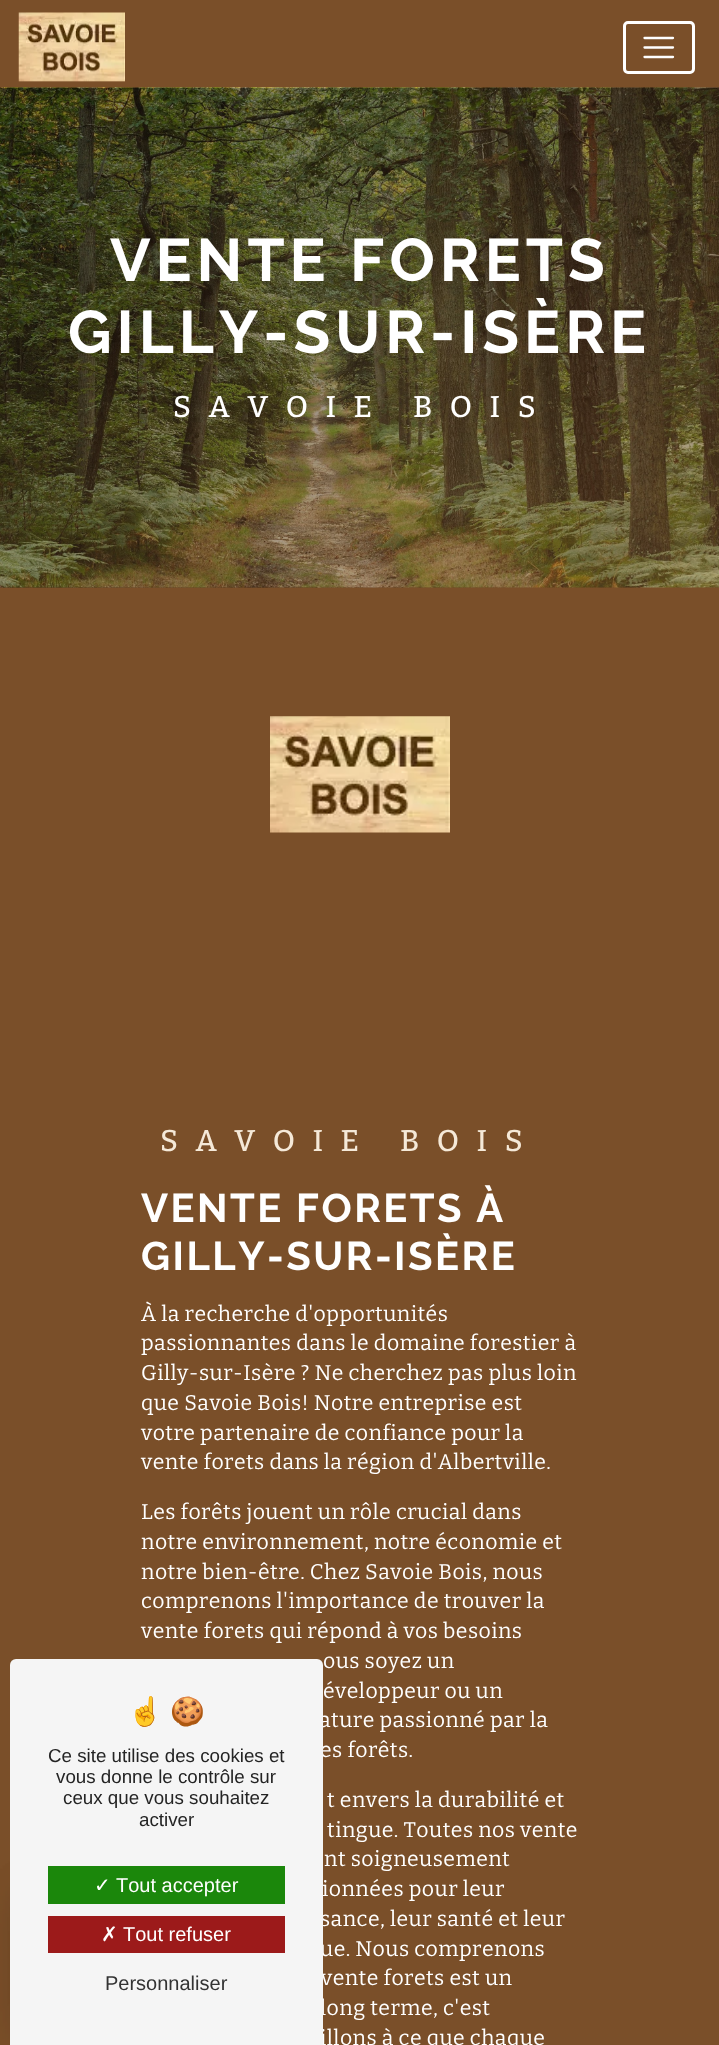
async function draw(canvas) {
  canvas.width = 719;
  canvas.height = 2045;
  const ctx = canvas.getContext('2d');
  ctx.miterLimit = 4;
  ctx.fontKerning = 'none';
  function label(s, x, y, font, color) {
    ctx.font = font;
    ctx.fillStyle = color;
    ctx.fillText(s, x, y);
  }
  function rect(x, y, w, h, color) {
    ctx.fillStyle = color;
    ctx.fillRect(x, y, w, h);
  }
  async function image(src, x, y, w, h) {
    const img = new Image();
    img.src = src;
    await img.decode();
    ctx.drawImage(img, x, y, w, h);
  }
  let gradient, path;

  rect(0, 0, 719, 2045, '#7a4f29');
  await image('assets/img1.png', 18, 12, 107, 70);
  ctx.beginPath();
  ctx.roundRect(624.5, 22.5, 69, 50, 3.5);
  ctx.strokeStyle = '#fff';
  ctx.lineWidth = 3;
  ctx.stroke();
  path = new Path2D('M644.5 38H673M644.5 47.5H673M644.5 57H673');
  ctx.lineWidth = 2.3;
  ctx.lineCap = 'round';
  ctx.stroke(path);
  await image('assets/img2.png', 0, 87, 719, 501);
  gradient = ctx.createLinearGradient(162, -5.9, 558, 681);
  gradient.addColorStop(0, '#00000080');
  gradient.addColorStop(1, '#7a4f2980');
  ctx.fillStyle = gradient;
  ctx.fillRect(0, 88, 719, 500);
  ctx.letterSpacing = '5px';
  label('VENTE FORETS', 110, 281, 'bold 60px Raleway', '#fff');
  label('GILLY-SUR-ISÈRE', 68, 353, 'bold 60px Raleway', '#fff');
  ctx.letterSpacing = '17.5px';
  label('SAVOIE BOIS', 173, 417, '500 30px Bitter', '#fff');
  await image('assets/img3.png', 270, 716, 180, 117);
  label('SAVOIE BOIS', 160, 1151, '500 30px Bitter', '#f5e9d8');
  ctx.letterSpacing = '2.5px';
  label('VENTE FORETS À', 141, 1222, 'bold 40px Raleway', '#fff');
  label('GILLY-SUR-ISÈRE', 141, 1270, 'bold 40px Raleway', '#fff');
  ctx.letterSpacing = '0.45px';
  label('À la recherche d\'opportunités', 141, 1321, '21.25px Bitter', '#fff');
  label('passionnantes dans le domaine forestier à', 141, 1350, '21.25px Bitter', '#fff');
  label('Gilly-sur-Isère ? Ne cherchez pas plus loin', 141, 1380, '21.25px Bitter', '#fff');
  label('que Savoie Bois! Notre entreprise est', 141, 1410, '21.25px Bitter', '#fff');
  label('votre partenaire de confiance pour la', 141, 1440, '21.25px Bitter', '#fff');
  label('vente forets dans la région d\'Albertville.', 141, 1469, '21.25px Bitter', '#fff');
  label('Les forêts jouent un rôle crucial dans', 141, 1519, '21.25px Bitter', '#fff');
  label('notre environnement, notre économie et', 141, 1549, '21.25px Bitter', '#fff');
  label('notre bien-être. Chez Savoie Bois, nous', 141, 1579, '21.25px Bitter', '#fff');
  label('comprenons l\'importance de trouver la', 141, 1608, '21.25px Bitter', '#fff');
  label('vente forets qui répond à vos besoins', 141, 1638, '21.25px Bitter', '#fff');
  label('ous soyez un', 323, 1668, '21.25px Bitter', '#fff');
  label('éveloppeur ou un', 323, 1698, '21.25px Bitter', '#fff');
  label('ature passionné par la', 319, 1727, '21.25px Bitter', '#fff');
  label('es forêts.', 320, 1757, '21.25px Bitter', '#fff');
  label('t envers la durabilité et', 327, 1807, '21.25px Bitter', '#fff');
  label('tingue. Toutes nos vente', 327, 1837, '21.25px Bitter', '#fff');
  label('nt soigneusement', 324, 1866, '21.25px Bitter', '#fff');
  label('ionnées pour leur', 322, 1896, '21.25px Bitter', '#fff');
  label('sance, leur santé et leur', 320, 1926, '21.25px Bitter', '#fff');
  label('ue. Nous comprenons', 320, 1956, '21.25px Bitter', '#fff');
  label('vente forets est un', 321, 1985, '21.25px Bitter', '#fff');
  label('long terme, c\'est', 320, 2015, '21.25px Bitter', '#fff');
  label('illons à ce que chaque', 320, 2045, '21.25px Bitter', '#fff');
  ctx.fillStyle = '#00000026';
  ctx.filter = 'blur(19px)';
  ctx.beginPath();
  ctx.rect(25, 1890, 238, 143);
  ctx.fill();
  ctx.filter = 'none';
  ctx.fillStyle = '#0000001a';
  ctx.filter = 'blur(25px)';
  ctx.beginPath();
  ctx.rect(25, 1896, 238, 143);
  ctx.fill();
  ctx.filter = 'none';
  ctx.fillStyle = '#f5f5f5';
  ctx.beginPath();
  ctx.roundRect(10, 1659, 313, 386, [6, 6, 0, 0]);
  ctx.fill();
  ctx.letterSpacing = '0px';
  label('☝', 128, 1721, '28px Noto Color Emoji', '#242424');
  label('🍪', 170, 1721, '28px Noto Color Emoji', '#242424');
  label('Ce site utilise des cookies et', 48, 1762, '18.75px Liberation Sans', '#242424');
  label('vous donne le contrôle sur', 56, 1783, '18.75px Liberation Sans', '#242424');
  label('ceux que vous souhaitez', 63, 1804, '18.75px Liberation Sans', '#242424');
  label('activer', 139, 1826, '18.75px Liberation Sans', '#242424');
  rect(48, 1866, 237, 38, '#1b870b');
  label('✓', 94, 1892, '20px DejaVu Sans', '#fff');
  label('Tout accepter', 116, 1892, '20px Liberation Sans', '#fff');
  rect(48, 1916, 237, 37, '#9c1a1a');
  label('✗', 101, 1941, '20px DejaVu Sans', '#fff');
  label('Tout refuser', 123, 1941, '20px Liberation Sans', '#fff');
  label('Personnaliser', 105, 1990, '20px Liberation Sans', '#333');
}

draw(document.querySelector('canvas'));
